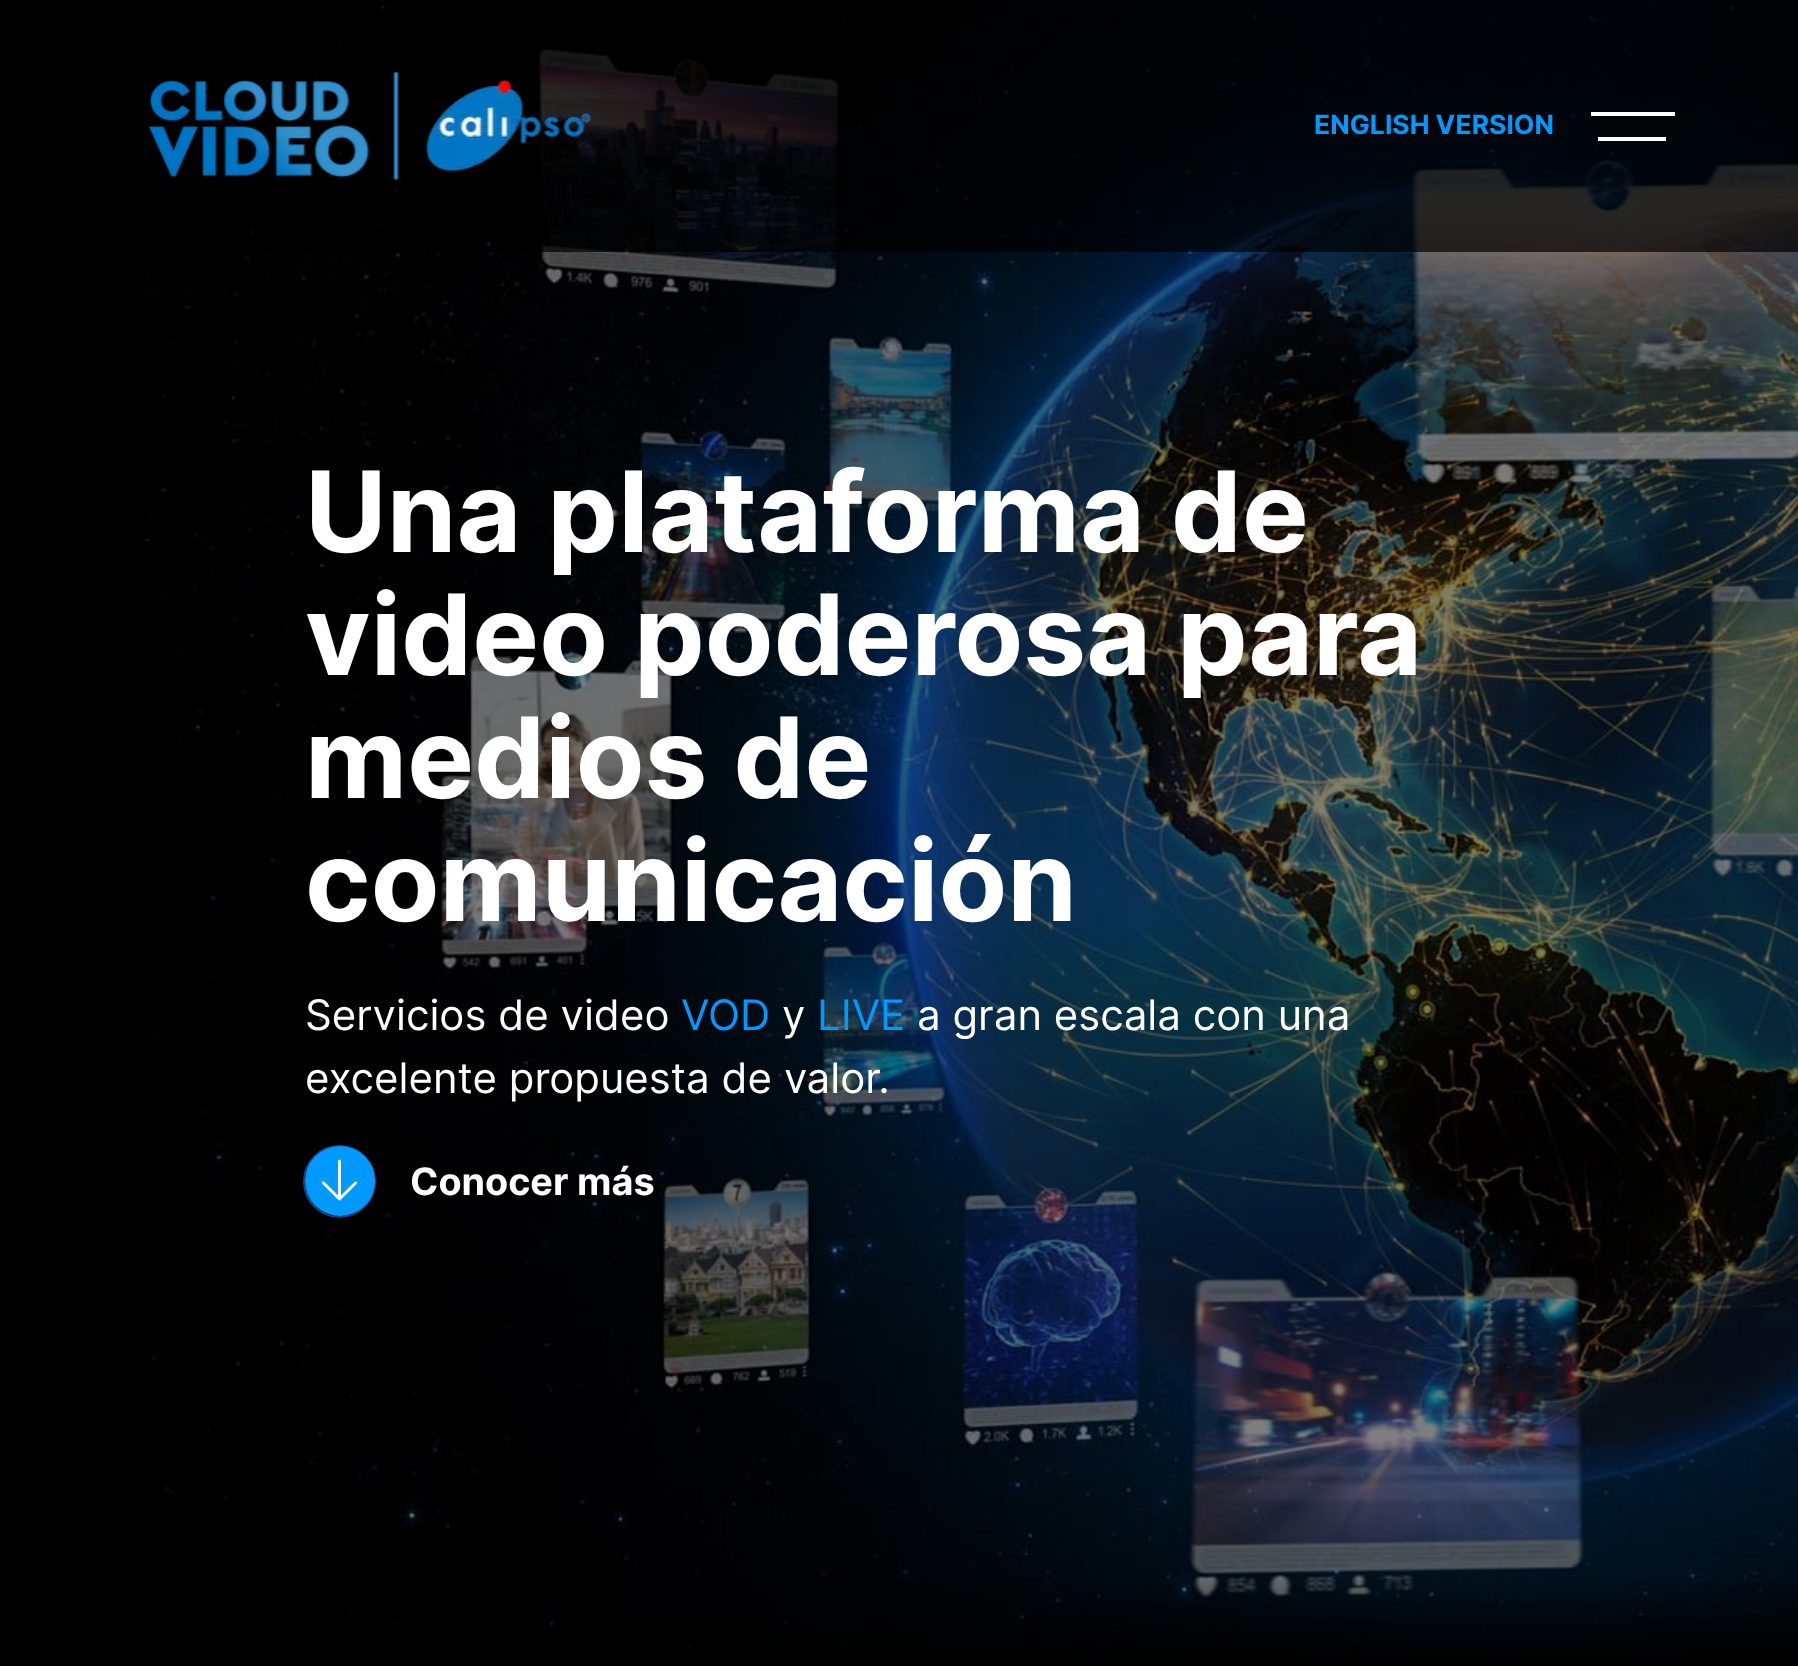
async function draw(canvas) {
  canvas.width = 1798;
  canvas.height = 1666;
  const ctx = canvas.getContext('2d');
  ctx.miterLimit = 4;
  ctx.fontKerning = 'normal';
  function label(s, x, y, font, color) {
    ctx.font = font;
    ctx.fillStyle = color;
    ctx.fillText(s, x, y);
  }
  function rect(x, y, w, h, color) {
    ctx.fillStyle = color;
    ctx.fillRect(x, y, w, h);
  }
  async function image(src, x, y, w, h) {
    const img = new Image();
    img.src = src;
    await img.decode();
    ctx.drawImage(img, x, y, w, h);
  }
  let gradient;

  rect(0, 0, 1798, 1666, '#000');
  await image('assets/img2.png', 145, 0, 1653, 1665);
  rect(148, 0, 1650, 252, '#000000b3');
  await image('assets/img1.png', 148, 71, 443, 109);
  label('ENGLISH VERSION', 1314, 134, 'bold 26.5px Inter', '#09f');
  rect(1591, 112, 84, 4, '#fff');
  rect(1598, 137, 68, 4, '#fff');
  label('Una plataforma de', 305, 552, 'bold 112px Inter', '#fff');
  label('video poderosa para', 305, 675, 'bold 112px Inter', '#fff');
  label('medios de', 305, 798, 'bold 112px Inter', '#fff');
  label('comunicación', 305, 921, 'bold 112px Inter', '#fff');
  label('Servicios de video', 305, 1030, '42px Inter', '#fff');
  label('VOD', 681, 1030, '42px Inter', '#09f');
  label('y', 782, 1030, '42px Inter', '#fff');
  label('LIVE', 817, 1030, '42px Inter', '#09f');
  label('a gran escala con una', 917, 1030, '42px Inter', '#fff');
  label('excelente propuesta de valor.', 305, 1093, '42px Inter', '#fff');
  ctx.beginPath();
  ctx.arc(339.5, 1181.5, 35.5, 0, 2 * Math.PI);
  ctx.strokeStyle = '#1e417b';
  ctx.lineWidth = 2;
  ctx.stroke();
  ctx.fillStyle = '#09f';
  ctx.beginPath();
  ctx.arc(340, 1181, 35, 0, 2 * Math.PI);
  ctx.fill();
  await image('assets/img3.png', 322, 1159, 35, 42);
  label('Conocer más', 410, 1195, 'bold 37.75px Inter', '#fff');
  gradient = ctx.createLinearGradient(900, 1666, 900, 1578);
  gradient.addColorStop(0, '#000');
  gradient.addColorStop(1, '#00000000');
  ctx.fillStyle = gradient;
  ctx.fillRect(361, 1580, 1437, 85);
}

draw(document.querySelector('canvas'));
